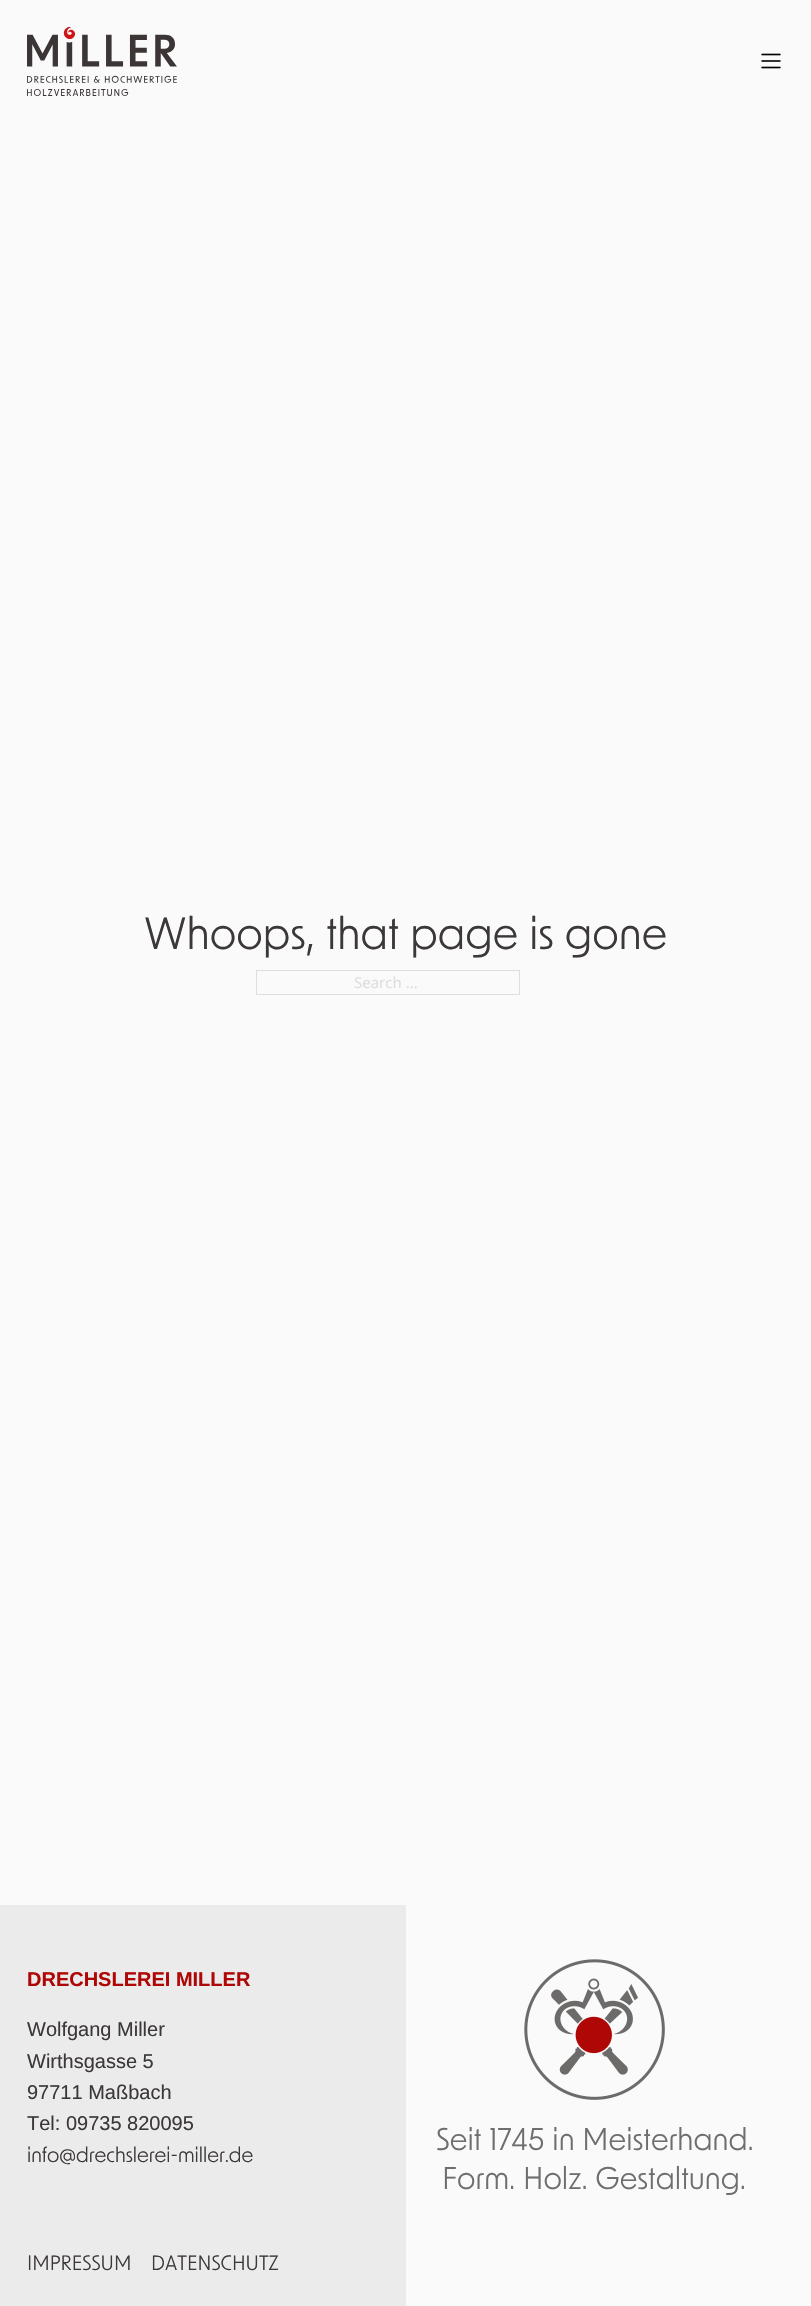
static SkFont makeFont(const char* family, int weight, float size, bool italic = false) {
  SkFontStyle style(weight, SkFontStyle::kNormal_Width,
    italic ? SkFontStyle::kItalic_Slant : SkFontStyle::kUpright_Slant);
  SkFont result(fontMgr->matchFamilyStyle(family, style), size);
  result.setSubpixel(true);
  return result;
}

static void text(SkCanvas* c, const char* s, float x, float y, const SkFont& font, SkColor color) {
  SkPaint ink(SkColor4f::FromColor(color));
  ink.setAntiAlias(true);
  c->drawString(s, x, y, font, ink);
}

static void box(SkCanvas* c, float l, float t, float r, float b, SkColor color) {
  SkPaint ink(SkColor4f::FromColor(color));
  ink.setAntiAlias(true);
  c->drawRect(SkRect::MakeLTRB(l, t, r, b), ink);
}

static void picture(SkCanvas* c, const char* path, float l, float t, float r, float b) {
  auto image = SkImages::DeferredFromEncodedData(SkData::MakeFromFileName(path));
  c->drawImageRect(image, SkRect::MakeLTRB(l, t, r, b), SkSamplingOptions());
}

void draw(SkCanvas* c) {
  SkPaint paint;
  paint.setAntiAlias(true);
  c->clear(0xfffafafa);
  picture(c, "img_01.png", 27, 27, 177, 96);
  picture(c, "img_02.png", 761, 53, 781, 69);
  SkFont face1 = makeFont("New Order", 400, 43.2f);
  text(c, "Whoops, that page is gone", 144, 949, face1, 0xff3c3839);
  paint.setStyle(SkPaint::kStroke_Style);
  paint.setStrokeWidth(1);
  paint.setColor(0xffdddedf);
  c->drawRect(SkRect::MakeLTRB(256.5f, 970.5f, 519.5f, 994.5f), paint);
  SkFont face2 = makeFont("Noto Sans", 400, 15);
  text(c, "Search ...", 354, 988, face2, 0xffdddedf);
  box(c, 0, 1905, 406, 2306, 0xffebebeb);
  SkFont face3 = makeFont("Liberation Sans", 700, 20);
  text(c, "DRECHSLEREI MILLER", 27, 1986, face3, 0xffaf0606);
  SkFont face4 = makeFont("Liberation Sans", 400, 20);
  text(c, "Wolfgang Miller", 27, 2036, face4, 0xff3c3839);
  text(c, "Wirthsgasse 5", 27, 2068, face4, 0xff3c3839);
  text(c, "97711 Maßbach", 27, 2099, face4, 0xff3c3839);
  text(c, "Tel: 09735 820095", 27, 2130, face4, 0xff3c3839);
  SkFont face5 = makeFont("New Order", 400, 20);
  text(c, "info@drechslerei-miller.de", 27, 2162, face5, 0xff3c3839);
  picture(c, "img_03.png", 524, 1959, 665, 2100);
  SkFont face6 = makeFont("New Order", 400, 30);
  text(c, "Seit 1745 in Meisterhand.", 436, 2150, face6, 0xff6e6e6e);
  text(c, "Form. Holz. Gestaltung.", 442, 2189, face6, 0xff6e6e6e);
  text(c, "IMPRESSUM", 27, 2270, face5, 0xff3c3839);
  text(c, "DATENSCHUTZ", 151, 2270, face5, 0xff3c3839);
}
